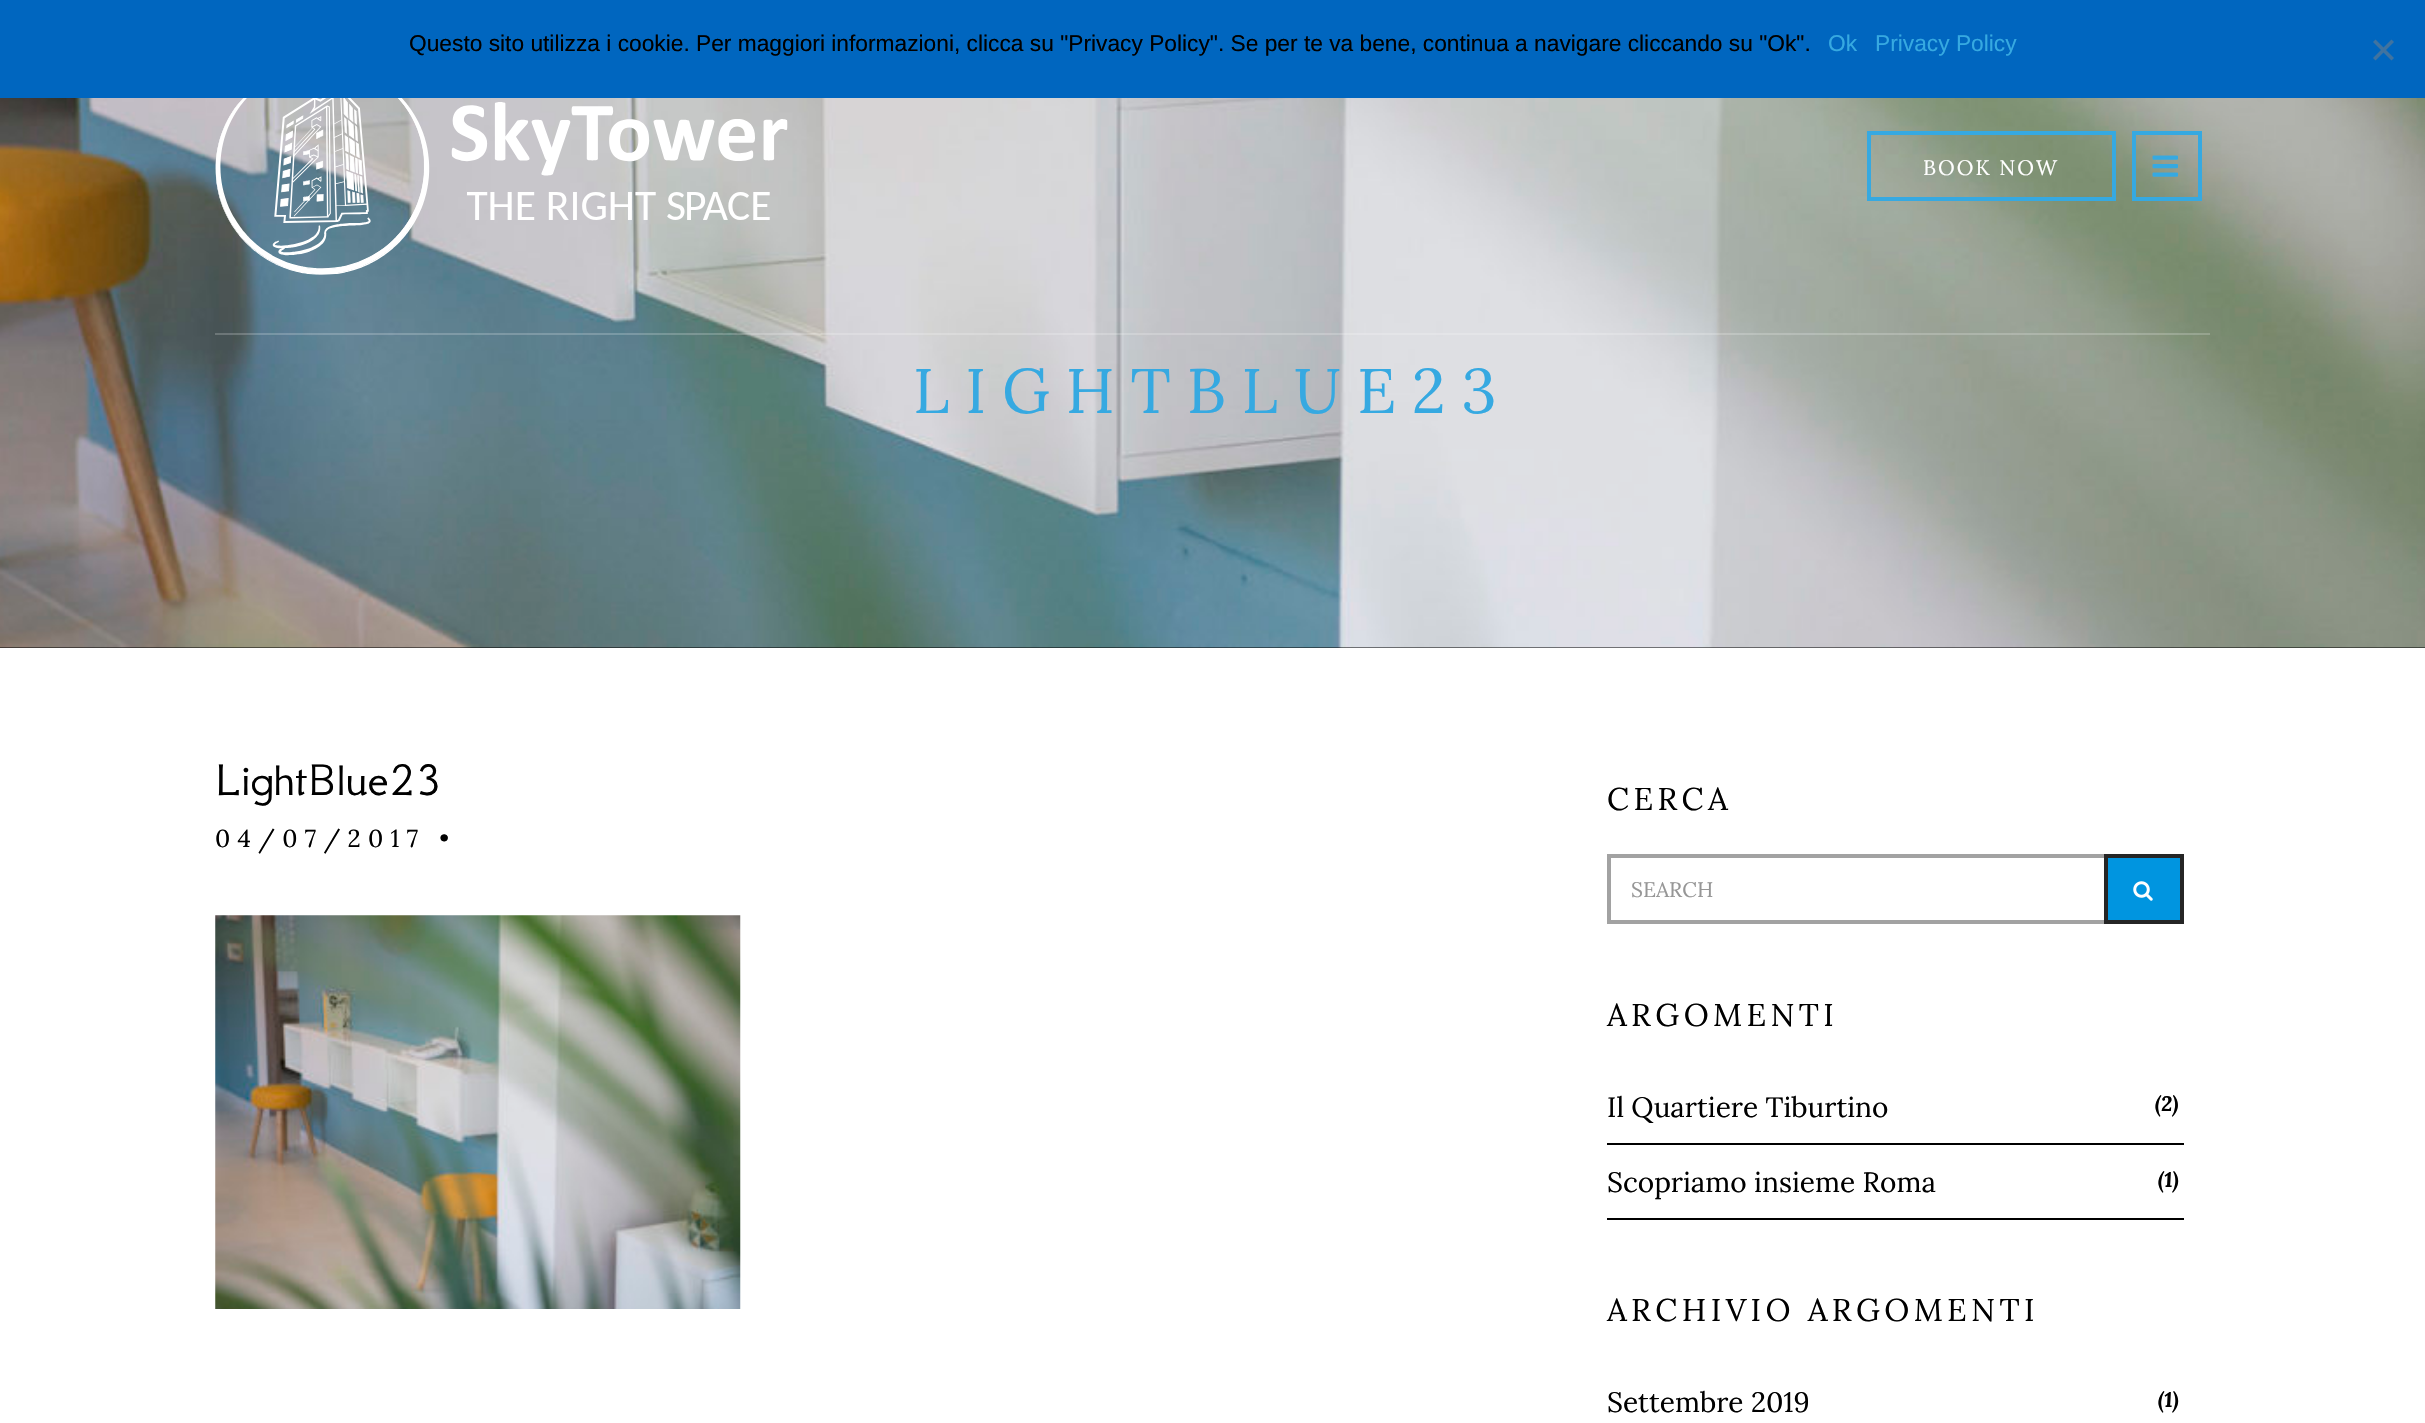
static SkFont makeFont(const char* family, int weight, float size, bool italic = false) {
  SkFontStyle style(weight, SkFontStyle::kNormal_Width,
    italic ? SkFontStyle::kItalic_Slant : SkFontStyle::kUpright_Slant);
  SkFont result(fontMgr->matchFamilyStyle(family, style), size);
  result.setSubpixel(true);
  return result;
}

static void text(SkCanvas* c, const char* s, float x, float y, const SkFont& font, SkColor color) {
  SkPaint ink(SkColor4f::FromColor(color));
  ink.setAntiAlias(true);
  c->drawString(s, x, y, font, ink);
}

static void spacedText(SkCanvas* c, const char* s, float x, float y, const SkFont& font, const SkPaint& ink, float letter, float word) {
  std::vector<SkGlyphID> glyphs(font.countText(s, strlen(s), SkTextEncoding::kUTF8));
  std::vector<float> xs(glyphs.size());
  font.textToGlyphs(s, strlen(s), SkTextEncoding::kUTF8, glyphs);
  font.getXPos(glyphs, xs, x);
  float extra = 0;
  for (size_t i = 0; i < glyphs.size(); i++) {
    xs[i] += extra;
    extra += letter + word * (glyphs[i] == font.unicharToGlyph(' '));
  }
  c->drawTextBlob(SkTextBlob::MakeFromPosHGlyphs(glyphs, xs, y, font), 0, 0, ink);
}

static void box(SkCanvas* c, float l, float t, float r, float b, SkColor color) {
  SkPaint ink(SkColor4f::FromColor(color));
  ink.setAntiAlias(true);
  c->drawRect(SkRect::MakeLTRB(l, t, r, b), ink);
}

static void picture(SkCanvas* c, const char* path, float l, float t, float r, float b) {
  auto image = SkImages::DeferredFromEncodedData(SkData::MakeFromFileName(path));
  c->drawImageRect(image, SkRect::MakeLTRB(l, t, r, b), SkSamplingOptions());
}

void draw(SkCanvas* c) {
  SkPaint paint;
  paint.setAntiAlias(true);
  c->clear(0xffffffff);
  box(c, 0, 0, 2425, 98, 0xff0066bf);
  SkFont face1 = makeFont("Liberation Sans", 400, 22.75f);
  text(c, "Questo sito utilizza i cookie. Per maggiori informazioni, clicca su \"Privacy Policy\". Se per te va bene, continua a navigare cliccando su \"Ok\".", 409, 51, face1, 0xff000000);
  text(c, "Ok", 1828, 51, face1, 0xff36a9e1);
  text(c, "Privacy Policy", 1875, 51, face1, 0xff36a9e1);
  paint.setColor(0xff4073a0);
  c->drawPath(SkPathBuilder().moveTo(2391.5f, 39.5f).lineTo(2394, 42).lineTo(2375.5f, 60.5f).lineTo(2373, 58).close().detach(), paint);
  c->drawPath(SkPathBuilder().moveTo(2373, 42).lineTo(2375.5f, 39.5f).lineTo(2394, 58).lineTo(2391.5f, 60.5f).close().detach(), paint);
  box(c, 0, 647, 2425, 648, 0xff000000);
  picture(c, "img_03.png", 0, 98, 2425, 648);
  box(c, 215, 333, 2210, 335, 0x33ffffff);
  picture(c, "img_01.png", 215, 98, 788, 275);
  paint.setStyle(SkPaint::kStroke_Style);
  paint.setStrokeWidth(4);
  paint.setColor(0xff36a9e1);
  c->drawRect(SkRect::MakeLTRB(1869, 133, 2114, 199), paint);
  SkFont face2 = makeFont("Lora", 400, 21);
  paint.setStyle(SkPaint::kFill_Style);
  paint.setColor(0xffffffff);
  spacedText(c, "BOOK NOW", 1923, 175, face2, paint, 2, 0);
  paint.setStyle(SkPaint::kStroke_Style);
  paint.setColor(0xff36a9e1);
  c->drawRect(SkRect::MakeLTRB(2134, 133, 2200, 199), paint);
  picture(c, "img_02.png", 2152, 155, 2178, 177);
  SkFont face3 = makeFont("Lora", 400, 63);
  paint.setStyle(SkPaint::kFill_Style);
  spacedText(c, "LIGHTBLUE23", 913, 413, face3, paint, 15.75f, 0);
  SkFont face4 = makeFont("GFS Neohellenic", 400, 49);
  text(c, "LightBlue23", 215, 795, face4, 0xff000000);
  SkFont face5 = makeFont("Lora", 400, 24.5f);
  paint.setColor(0xff000000);
  spacedText(c, "04/07/2017 •", 215, 847, face5, paint, 7.3f, 0);
  picture(c, "img_04.png", 215, 915, 741, 1309);
  SkFont face6 = makeFont("Lora", 400, 31.5f);
  spacedText(c, "CERCA", 1607, 810, face6, paint, 4.4f, 0);
  paint.setStyle(SkPaint::kStroke_Style);
  paint.setColor(0xffa2a2a2);
  c->drawRect(SkRect::MakeLTRB(1609, 856, 2182, 922), paint);
  text(c, "SEARCH", 1631, 897, face2, 0xff969696);
  paint.setStyle(SkPaint::kFill_Style);
  paint.setColor(0xff0095e0);
  c->drawRect(SkRect::MakeLTRB(2106, 856, 2182, 922), paint);
  paint.setStyle(SkPaint::kStroke_Style);
  paint.setColor(0xff252525);
  c->drawRect(SkRect::MakeLTRB(2106, 856, 2182, 922), paint);
  picture(c, "img_05.png", 2133, 881, 2153, 901);
  paint.setStyle(SkPaint::kFill_Style);
  paint.setColor(0xff000000);
  spacedText(c, "ARGOMENTI", 1607, 1026, face6, paint, 4.4f, 0);
  box(c, 1607, 1143, 2184, 1145, 0xff000000);
  SkFont face7 = makeFont("Lora", 400, 28);
  text(c, "Il Quartiere Tiburtino", 1607, 1117, face7, 0xff000000);
  SkFont face8 = makeFont("Lora", 700, 21, true);
  text(c, "(2)", 2155, 1111, face8, 0xff000000);
  box(c, 1607, 1218, 2184, 1220, 0xff000000);
  text(c, "Scopriamo insieme Roma", 1607, 1192, face7, 0xff000000);
  text(c, "(1)", 2158, 1187, face8, 0xff000000);
  spacedText(c, "ARCHIVIO ARGOMENTI", 1607, 1321, face6, paint, 4.4f, 0);
  text(c, "Settembre 2019", 1607, 1412, face7, 0xff000000);
  text(c, "(1)", 2158, 1407, face8, 0xff000000);
}
